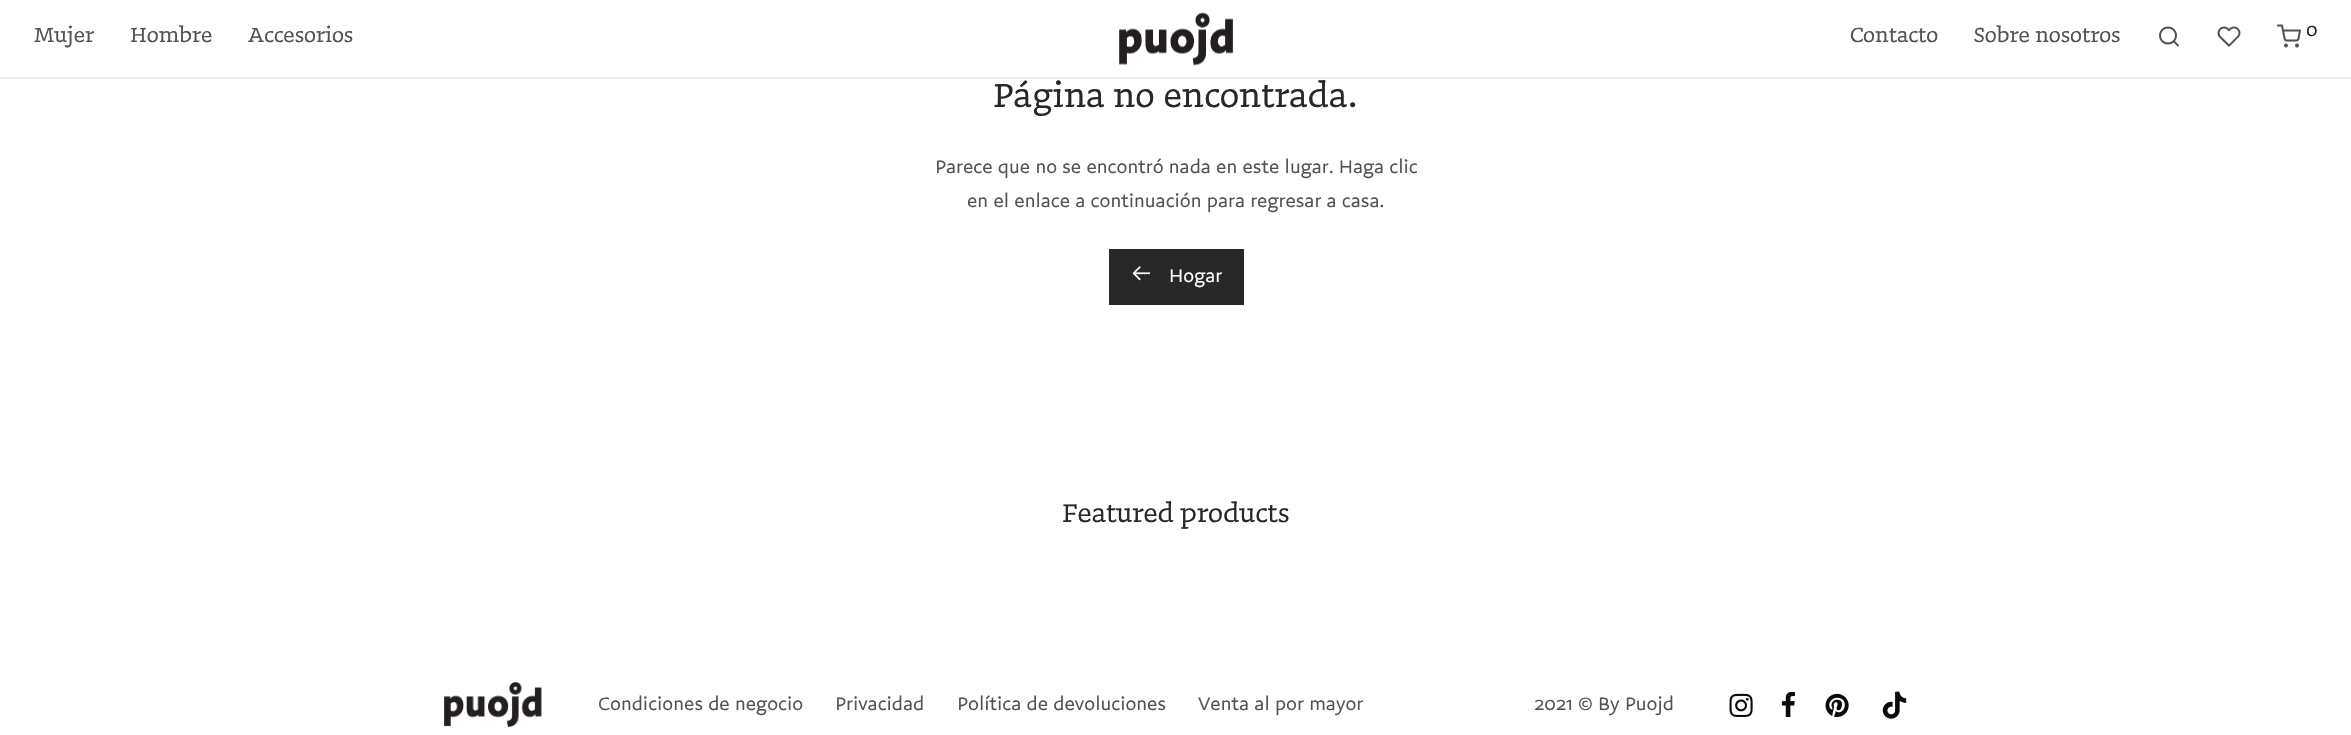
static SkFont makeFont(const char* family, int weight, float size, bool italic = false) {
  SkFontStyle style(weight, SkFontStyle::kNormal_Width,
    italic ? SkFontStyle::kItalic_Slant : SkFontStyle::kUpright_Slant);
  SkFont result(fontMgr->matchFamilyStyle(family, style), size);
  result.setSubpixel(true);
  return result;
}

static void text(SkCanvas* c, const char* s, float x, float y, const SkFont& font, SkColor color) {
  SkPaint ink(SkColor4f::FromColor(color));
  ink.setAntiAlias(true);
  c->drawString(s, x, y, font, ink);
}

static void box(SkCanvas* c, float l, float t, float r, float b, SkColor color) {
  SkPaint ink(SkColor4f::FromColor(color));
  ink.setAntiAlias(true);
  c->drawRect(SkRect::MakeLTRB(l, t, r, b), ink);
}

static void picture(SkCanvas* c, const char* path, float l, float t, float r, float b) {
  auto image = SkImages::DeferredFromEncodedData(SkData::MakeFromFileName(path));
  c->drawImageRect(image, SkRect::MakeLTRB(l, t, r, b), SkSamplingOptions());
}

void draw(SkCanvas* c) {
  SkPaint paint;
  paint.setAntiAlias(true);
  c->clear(0xffffffff);
  box(c, 0, 77, 2351, 79, 0xffeeeeee);
  SkFont face1 = makeFont("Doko", 400, 24);
  text(c, "Mujer", 34, 42, face1, 0xff525252);
  text(c, "Hombre", 130, 42, face1, 0xff525252);
  text(c, "Accesorios", 248, 42, face1, 0xff525252);
  picture(c, "img_01.png", 1119, 12, 1234, 66);
  text(c, "Contacto", 1850, 42, face1, 0xff525252);
  text(c, "Sobre nosotros", 1974, 42, face1, 0xff525252);
  picture(c, "img_02.png", 2159, 26, 2179, 47);
  picture(c, "img_03.png", 2217, 26, 2241, 47);
  picture(c, "img_04.png", 2277, 24, 2301, 48);
  SkFont face2 = makeFont("Doko", 400, 21);
  text(c, "0", 2306, 36, face2, 0xff1a1a1a);
  SkFont face3 = makeFont("Doko", 400, 39);
  text(c, "Página no encontrada.", 993, 107, face3, 0xff282828);
  SkFont face4 = makeFont("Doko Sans", 400, 21);
  text(c, "Parece que no se encontró nada en este lugar. Haga clic", 935, 173, face4, 0xff525252);
  text(c, "en el enlace a continuación para regresar a casa.", 967, 207, face4, 0xff525252);
  box(c, 1109, 249, 1244, 305, 0xff282828);
  picture(c, "img_05.png", 1132, 266, 1151, 281);
  text(c, "Hogar", 1169, 282, face4, 0xffffffff);
  SkFont face5 = makeFont("Doko", 400, 30);
  text(c, "Featured products", 1062, 522, face5, 0xff282828);
  picture(c, "img_06.png", 444, 682, 542, 727);
  text(c, "Condiciones de negocio", 598, 710, face4, 0xff525252);
  text(c, "Privacidad", 835, 710, face4, 0xff525252);
  text(c, "Política de devoluciones", 957, 710, face4, 0xff525252);
  text(c, "Venta al por mayor", 1198, 710, face4, 0xff525252);
  text(c, "2021 © By Puojd", 1534, 710, face4, 0xff525252);
  picture(c, "img_07.png", 1729, 693, 1753, 717);
  picture(c, "img_08.png", 1781, 691, 1795, 717);
  picture(c, "img_09.png", 1825, 693, 1849, 717);
  picture(c, "img_10.png", 1882, 691, 1907, 719);
}
